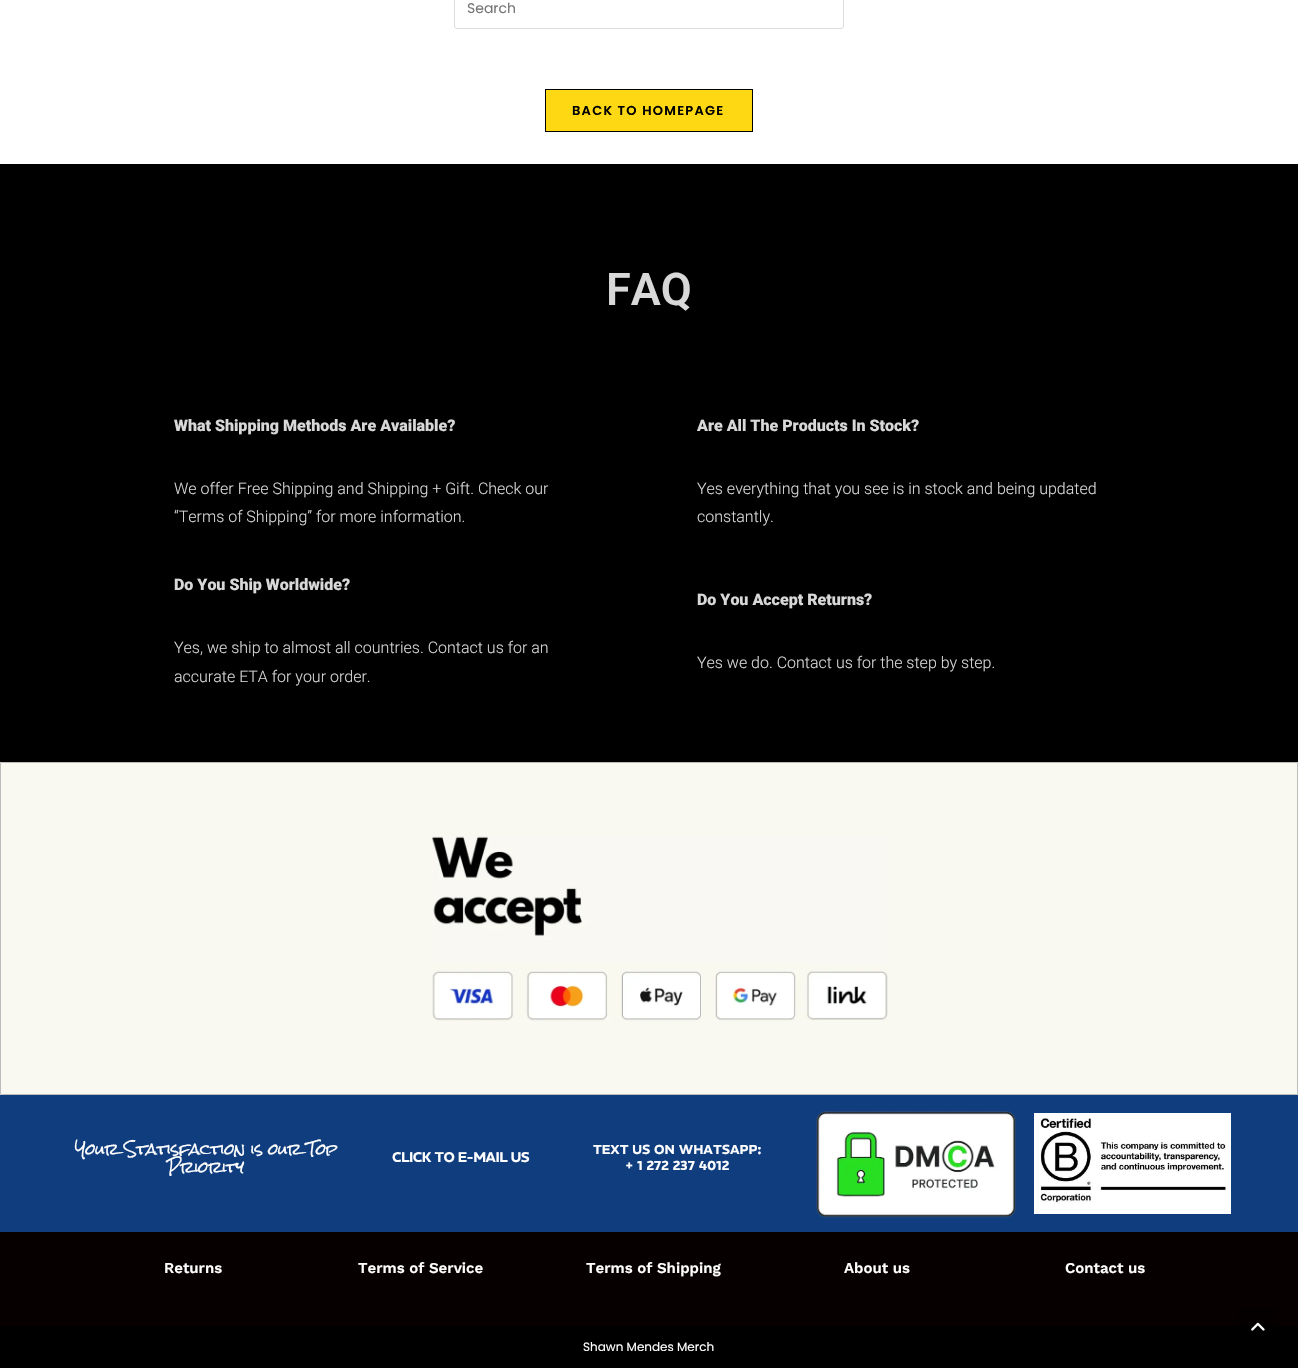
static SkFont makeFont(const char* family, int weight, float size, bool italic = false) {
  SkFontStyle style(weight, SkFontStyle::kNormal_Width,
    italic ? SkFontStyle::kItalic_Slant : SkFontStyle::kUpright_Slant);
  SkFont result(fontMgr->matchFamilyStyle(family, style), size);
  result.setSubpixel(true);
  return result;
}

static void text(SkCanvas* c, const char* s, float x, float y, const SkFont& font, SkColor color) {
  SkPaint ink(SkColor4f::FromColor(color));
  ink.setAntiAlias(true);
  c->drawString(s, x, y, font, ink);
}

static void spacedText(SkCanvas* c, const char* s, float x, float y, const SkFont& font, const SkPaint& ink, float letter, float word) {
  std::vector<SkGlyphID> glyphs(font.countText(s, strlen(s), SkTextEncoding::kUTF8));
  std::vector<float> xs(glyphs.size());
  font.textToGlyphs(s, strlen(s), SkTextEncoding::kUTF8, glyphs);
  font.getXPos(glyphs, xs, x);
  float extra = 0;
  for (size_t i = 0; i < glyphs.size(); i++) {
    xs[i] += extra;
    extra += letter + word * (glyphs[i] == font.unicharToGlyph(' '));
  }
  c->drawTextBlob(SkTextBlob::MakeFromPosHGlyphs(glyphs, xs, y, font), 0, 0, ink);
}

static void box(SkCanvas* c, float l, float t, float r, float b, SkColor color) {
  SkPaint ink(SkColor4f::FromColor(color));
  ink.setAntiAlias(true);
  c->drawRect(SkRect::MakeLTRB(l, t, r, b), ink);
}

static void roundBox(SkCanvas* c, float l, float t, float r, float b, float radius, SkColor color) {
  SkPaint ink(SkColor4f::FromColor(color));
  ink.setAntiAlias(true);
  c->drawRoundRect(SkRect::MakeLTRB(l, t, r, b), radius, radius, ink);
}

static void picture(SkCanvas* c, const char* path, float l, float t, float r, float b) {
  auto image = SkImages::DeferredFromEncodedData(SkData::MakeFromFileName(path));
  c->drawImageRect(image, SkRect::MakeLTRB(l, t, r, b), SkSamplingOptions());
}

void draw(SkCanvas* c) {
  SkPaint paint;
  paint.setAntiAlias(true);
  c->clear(0xffffffff);
  paint.setStyle(SkPaint::kStroke_Style);
  paint.setStrokeWidth(1);
  paint.setColor(0xffdddddd);
  c->drawRoundRect(SkRect::MakeLTRB(454.5f, -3.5f, 843.5f, 28.5f), 2.5f, 2.5f, paint);
  SkFont face1 = makeFont("Poppins", 400, 14);
  text(c, "Search", 467, 13, face1, 0xff757575);
  paint.setStyle(SkPaint::kFill_Style);
  paint.setColor(0xffffd814);
  c->drawRect(SkRect::MakeLTRB(545.5f, 89.5f, 752.5f, 131.5f), paint);
  paint.setStyle(SkPaint::kStroke_Style);
  paint.setColor(0xff000000);
  c->drawRect(SkRect::MakeLTRB(545.5f, 89.5f, 752.5f, 131.5f), paint);
  SkFont face2 = makeFont("Poppins", 600, 13);
  paint.setStyle(SkPaint::kFill_Style);
  spacedText(c, "BACK TO HOMEPAGE", 572, 115, face2, paint, 1.25f, 0);
  box(c, 0, 164, 1298, 762, 0xff000000);
  SkFont face3 = makeFont("Roboto", 600, 45);
  text(c, "FAQ", 606, 305, face3, 0xffd9d8d8);
  SkFont face4 = makeFont("Roboto", 900, 16);
  text(c, "What Shipping Methods Are Available?", 174, 431, face4, 0xffd9d8d8);
  SkFont face5 = makeFont("Roboto", 300, 16);
  text(c, "We offer Free Shipping and Shipping + Gift. Check our", 174, 494, face5, 0xffd9d8d8);
  text(c, "“Terms of Shipping” for more information.", 174, 522, face5, 0xffd9d8d8);
  text(c, "Are All The Products In Stock?", 697, 431, face4, 0xffd9d8d8);
  text(c, "Yes everything that you see is in stock and being updated", 697, 494, face5, 0xffd9d8d8);
  text(c, "constantly.", 697, 522, face5, 0xffd9d8d8);
  text(c, "Do You Ship Worldwide?", 174, 590, face4, 0xffd9d8d8);
  text(c, "Yes, we ship to almost all countries. Contact us for an", 174, 653, face5, 0xffd9d8d8);
  text(c, "accurate ETA for your order.", 174, 682, face5, 0xffd9d8d8);
  text(c, "Do You Accept Returns?", 697, 605, face4, 0xffd9d8d8);
  text(c, "Yes we do. Contact us for the step by step.", 697, 668, face5, 0xffd9d8d8);
  paint.setColor(0xfff9f9f2);
  c->drawRoundRect(SkRect::MakeLTRB(0.5f, 762.5f, 1297.5f, 1094.5f), 0.5f, 0.5f, paint);
  paint.setStyle(SkPaint::kStroke_Style);
  paint.setColor(0xffbcbcbc);
  c->drawRoundRect(SkRect::MakeLTRB(0.5f, 762.5f, 1297.5f, 1094.5f), 0.5f, 0.5f, paint);
  picture(c, "img_01.png", 432, 836, 888, 1021);
  box(c, 0, 1095, 1298, 1232, 0xff103d7e);
  SkFont face6 = makeFont("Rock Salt", 400, 15);
  paint.setStyle(SkPaint::kFill_Style);
  paint.setColor(0xffffffff);
  spacedText(c, "Your Statisfaction is our Top", 75, 1155, face6, paint, -0.5f, 0);
  spacedText(c, "Priority", 167, 1173, face6, paint, -0.5f, 0);
  SkFont face7 = makeFont("REM", 600, 14);
  spacedText(c, "CLICK TO E-MAIL US", 392, 1162, face7, paint, -0.5f, 0);
  SkFont face8 = makeFont("REM", 600, 13);
  text(c, "TEXT US ON WHATSAPP:", 593, 1154, face8, 0xffffffff);
  text(c, "+ 1 272 237 4012", 625, 1170, face8, 0xffffffff);
  picture(c, "img_02.png", 816, 1111, 1016, 1218);
  picture(c, "img_03.png", 1034, 1113, 1231, 1214);
  box(c, 0, 1232, 1298, 1326, 0xff070000);
  SkFont face9 = makeFont("Work Sans", 600, 15);
  text(c, "Returns", 164, 1273, face9, 0xffffffff);
  text(c, "Terms of Service", 358, 1273, face9, 0xffffffff);
  text(c, "Terms of Shipping", 586, 1273, face9, 0xffffffff);
  text(c, "About us", 844, 1273, face9, 0xffffffff);
  text(c, "Contact us", 1065, 1273, face9, 0xffffffff);
  box(c, 0, 1326, 1298, 1368, 0xff000000);
  SkFont face10 = makeFont("Poppins", 400, 12);
  text(c, "Shawn Mendes Merch", 583, 1351, face10, 0xffffffff);
  roundBox(c, 1238, 1308, 1278, 1348, 2, 0x66000000);
  picture(c, "img_04.png", 1251, 1322, 1265, 1331);
}
